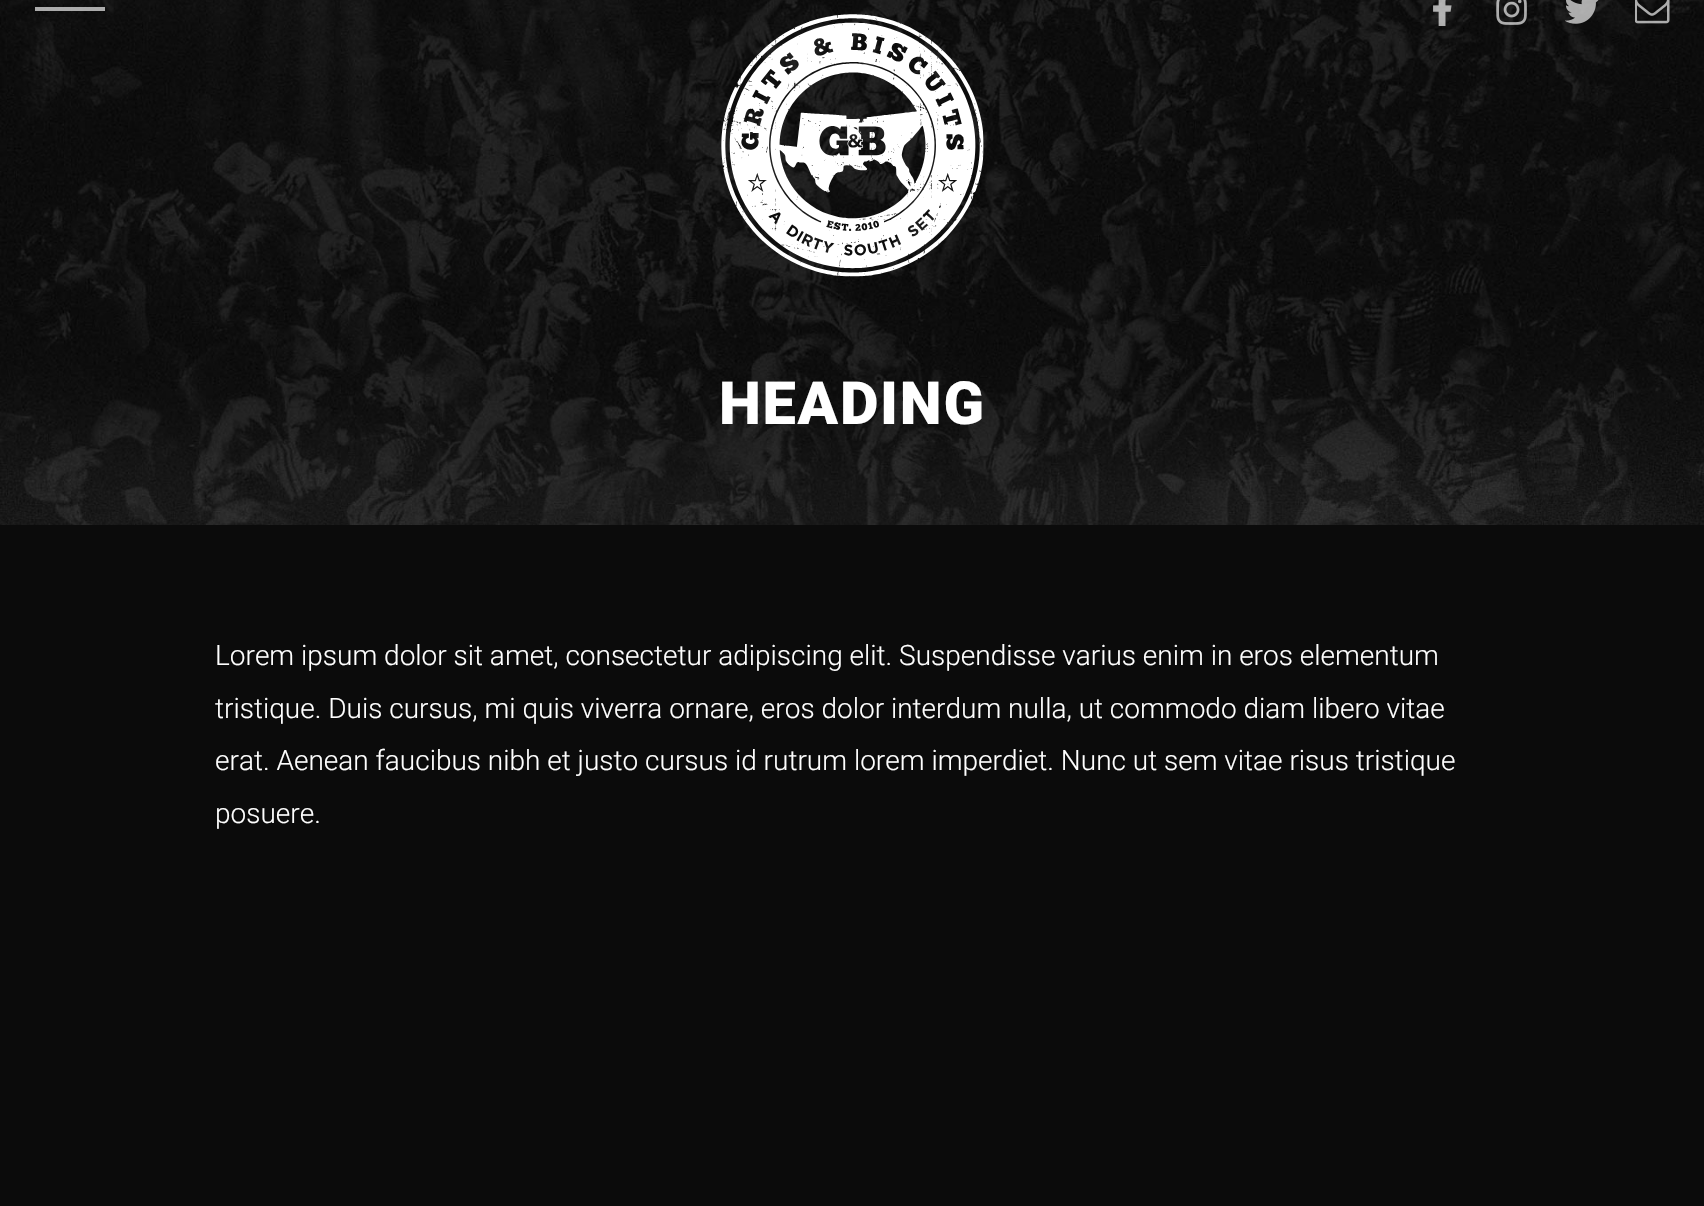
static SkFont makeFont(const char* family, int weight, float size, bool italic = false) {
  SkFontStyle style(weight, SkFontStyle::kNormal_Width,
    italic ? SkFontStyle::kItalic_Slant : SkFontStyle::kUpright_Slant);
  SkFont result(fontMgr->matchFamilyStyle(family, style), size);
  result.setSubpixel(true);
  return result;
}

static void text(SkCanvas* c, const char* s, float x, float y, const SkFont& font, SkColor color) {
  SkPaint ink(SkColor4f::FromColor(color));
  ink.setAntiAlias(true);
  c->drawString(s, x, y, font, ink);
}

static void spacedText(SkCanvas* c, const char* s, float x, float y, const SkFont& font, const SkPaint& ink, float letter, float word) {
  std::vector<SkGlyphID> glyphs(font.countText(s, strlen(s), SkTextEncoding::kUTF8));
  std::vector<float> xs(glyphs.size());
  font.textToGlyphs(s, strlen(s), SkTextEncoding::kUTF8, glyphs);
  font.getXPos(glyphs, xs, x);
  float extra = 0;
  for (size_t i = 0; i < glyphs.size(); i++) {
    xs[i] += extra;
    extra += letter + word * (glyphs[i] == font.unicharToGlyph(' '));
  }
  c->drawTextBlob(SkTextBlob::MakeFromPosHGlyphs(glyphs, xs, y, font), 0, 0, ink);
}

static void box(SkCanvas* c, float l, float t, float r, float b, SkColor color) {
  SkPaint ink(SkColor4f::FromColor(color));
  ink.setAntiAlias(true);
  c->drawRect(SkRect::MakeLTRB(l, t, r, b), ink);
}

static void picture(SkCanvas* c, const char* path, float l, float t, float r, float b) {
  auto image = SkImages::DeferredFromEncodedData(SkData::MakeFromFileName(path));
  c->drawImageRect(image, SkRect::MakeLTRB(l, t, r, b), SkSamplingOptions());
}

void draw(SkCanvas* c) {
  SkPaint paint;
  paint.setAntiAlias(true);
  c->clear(0xff0b0b0b);
  picture(c, "img_05.png", 0, 0, 1704, 525);
  box(c, 35, 7, 105, 11, 0xa6ffffff);
  picture(c, "img_01.png", 1433, 0, 1452, 26);
  picture(c, "img_02.png", 1496, 0, 1527, 25);
  picture(c, "img_03.png", 1565, 0, 1599, 24);
  picture(c, "img_04.png", 1635, 0, 1670, 24);
  picture(c, "img_06.png", 721, 14, 984, 277);
  SkFont face1 = makeFont("Roboto", 900, 59.5f);
  paint.setColor(0xffffffff);
  spacedText(c, "HEADING", 719, 424, face1, paint, 1.75f, 0);
  SkFont face2 = makeFont("Roboto", 300, 28);
  text(c, "Lorem ipsum dolor sit amet, consectetur adipiscing elit. Suspendisse varius enim in eros elementum", 215, 665, face2, 0xffffffff);
  text(c, "tristique. Duis cursus, mi quis viverra ornare, eros dolor interdum nulla, ut commodo diam libero vitae", 215, 718, face2, 0xffffffff);
  text(c, "erat. Aenean faucibus nibh et justo cursus id rutrum lorem imperdiet. Nunc ut sem vitae risus tristique", 215, 770, face2, 0xffffffff);
  text(c, "posuere.", 215, 823, face2, 0xffffffff);
}
